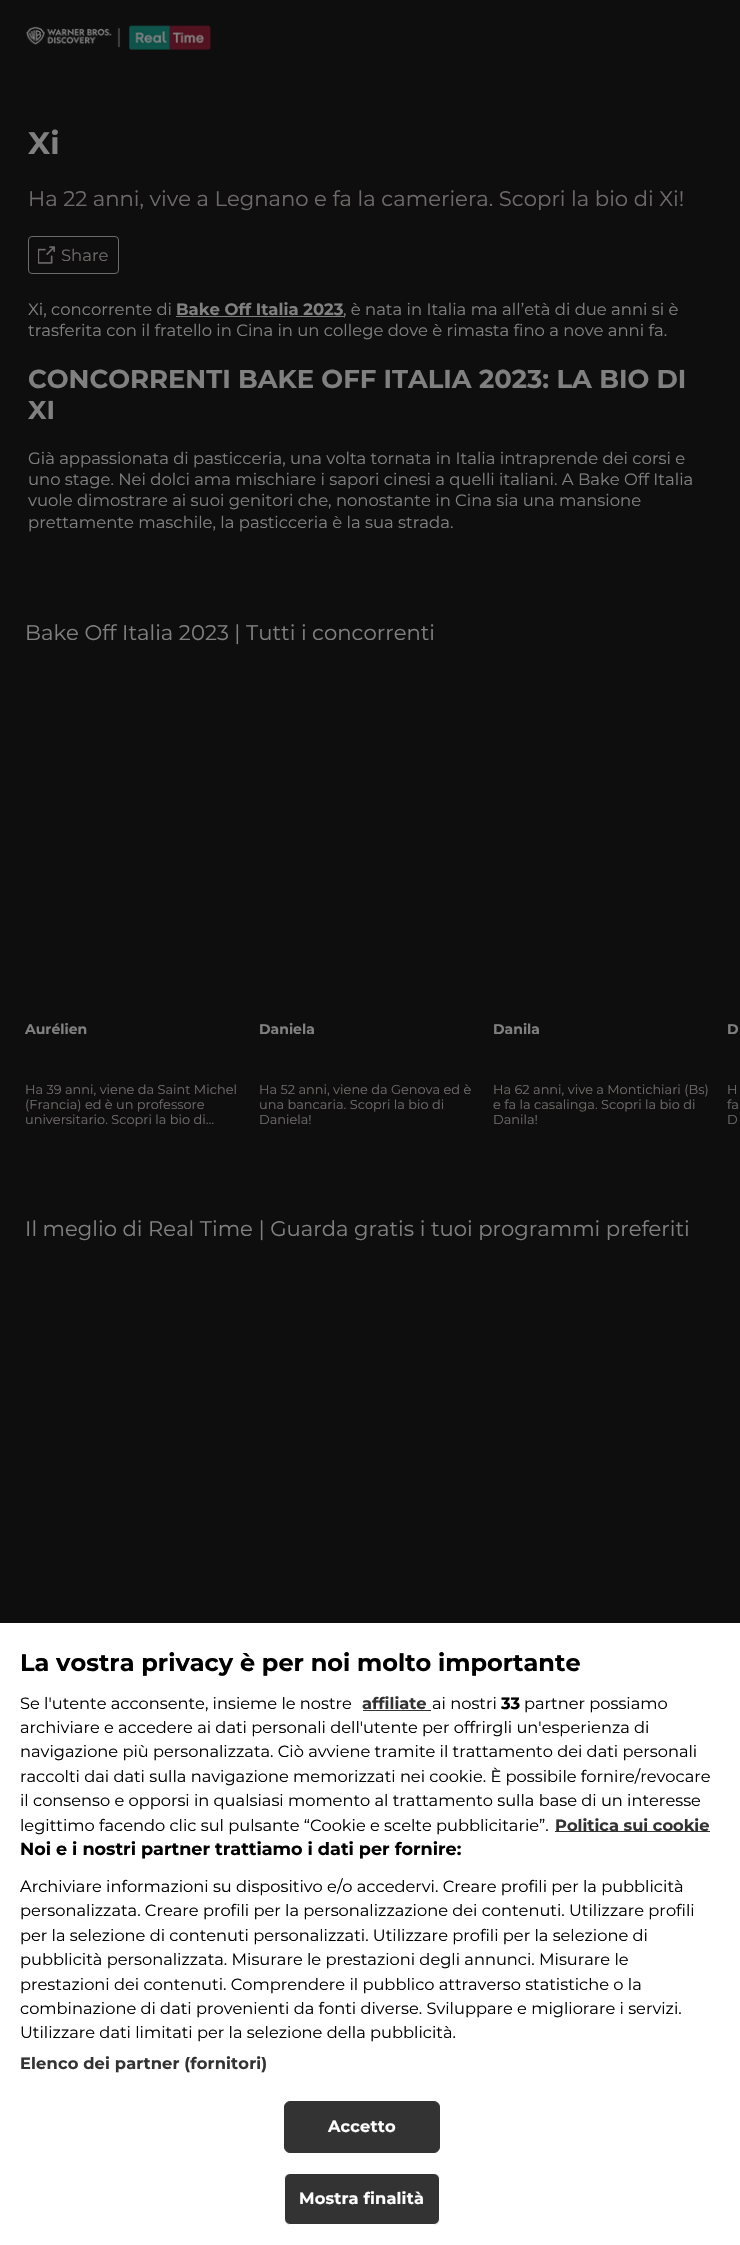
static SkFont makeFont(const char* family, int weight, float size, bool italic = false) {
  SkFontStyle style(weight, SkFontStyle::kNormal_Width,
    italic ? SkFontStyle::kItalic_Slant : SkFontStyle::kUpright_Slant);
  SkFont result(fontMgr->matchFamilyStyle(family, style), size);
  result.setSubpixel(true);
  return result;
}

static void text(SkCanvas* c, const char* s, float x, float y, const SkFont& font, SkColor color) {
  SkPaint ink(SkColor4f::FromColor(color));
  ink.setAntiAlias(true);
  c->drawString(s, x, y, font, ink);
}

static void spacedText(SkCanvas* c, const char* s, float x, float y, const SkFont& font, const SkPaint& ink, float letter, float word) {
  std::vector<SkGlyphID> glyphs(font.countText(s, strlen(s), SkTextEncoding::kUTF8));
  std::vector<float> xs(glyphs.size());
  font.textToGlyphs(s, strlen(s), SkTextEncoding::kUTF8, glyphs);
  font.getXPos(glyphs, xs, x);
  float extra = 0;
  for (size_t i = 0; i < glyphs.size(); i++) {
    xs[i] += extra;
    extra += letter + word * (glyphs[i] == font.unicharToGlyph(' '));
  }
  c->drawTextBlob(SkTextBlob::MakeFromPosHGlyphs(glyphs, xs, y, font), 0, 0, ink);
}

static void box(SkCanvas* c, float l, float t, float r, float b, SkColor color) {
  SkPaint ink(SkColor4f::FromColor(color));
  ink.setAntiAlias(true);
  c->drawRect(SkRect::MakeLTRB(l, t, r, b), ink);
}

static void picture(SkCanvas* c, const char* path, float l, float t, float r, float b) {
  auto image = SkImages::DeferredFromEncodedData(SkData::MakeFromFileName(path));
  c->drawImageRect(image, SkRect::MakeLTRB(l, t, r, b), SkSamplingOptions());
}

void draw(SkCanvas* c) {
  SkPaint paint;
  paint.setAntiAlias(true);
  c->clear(0xff0f0e0e);
  picture(c, "img_01.png", 26, 25, 211, 50);
  SkFont face1 = makeFont("Montserrat", 700, 31);
  text(c, "Xi", 28, 154, face1, 0xff808080);
  SkFont face2 = makeFont("Montserrat", 400, 21.15f);
  text(c, "Ha 22 anni, vive a Legnano e fa la cameriera. Scopri la bio di Xi!", 28, 206, face2, 0xff6f6a6a);
  paint.setStyle(SkPaint::kStroke_Style);
  paint.setStrokeWidth(1);
  paint.setColor(0xff6f6a6a);
  c->drawRoundRect(SkRect::MakeLTRB(28.5f, 236.5f, 118.5f, 273.5f), 3.5f, 3.5f, paint);
  picture(c, "img_02.png", 38, 246, 55, 264);
  SkFont face3 = makeFont("Montserrat", 400, 16.45f);
  text(c, "Share", 61, 261, face3, 0xff6f6a6a);
  text(c, "Xi, concorrente di", 28, 315, face3, 0xff808080);
  SkFont face4 = makeFont("Montserrat", 700, 16.45f);
  text(c, "Bake Off Italia 2023", 176, 315, face4, 0xff808080);
  box(c, 176, 316, 344, 317, 0xff808080);
  text(c, ", è nata in Italia ma all’età di due anni si è", 343, 315, face3, 0xff808080);
  text(c, "trasferita con il fratello in Cina in un college dove è rimasta fino a nove anni fa.", 28, 336, face3, 0xff808080);
  SkFont face5 = makeFont("Montserrat", 700, 25.85f);
  text(c, "CONCORRENTI BAKE OFF ITALIA 2023: LA BIO DI", 28, 388, face5, 0xff808080);
  text(c, "XI", 28, 419, face5, 0xff808080);
  text(c, "Già appassionata di pasticceria, una volta tornata in Italia intraprende dei corsi e", 28, 464, face3, 0xff808080);
  text(c, "uno stage. Nei dolci ama mischiare i sapori cinesi a quelli italiani. A Bake Off Italia", 28, 485, face3, 0xff808080);
  text(c, "vuole dimostrare ai suoi genitori che, nonostante in Cina sia una mansione", 28, 506, face3, 0xff808080);
  text(c, "prettamente maschile, la pasticceria è la sua strada.", 28, 528, face3, 0xff808080);
  text(c, "Bake Off Italia 2023 | Tutti i concorrenti", 25, 640, face2, 0xff808080);
  SkFont face6 = makeFont("Montserrat", 700, 14);
  text(c, "Aurélien", 25, 1034, face6, 0xff808080);
  SkFont face7 = makeFont("Montserrat", 400, 12.9f);
  text(c, "Ha 39 anni, viene da Saint Michel", 25, 1094, face7, 0xff6f6a6a);
  text(c, "(Francia) ed è un professore", 25, 1109, face7, 0xff6f6a6a);
  text(c, "universitario. Scopri la bio di…", 25, 1124, face7, 0xff6f6a6a);
  text(c, "Daniela", 259, 1034, face6, 0xff808080);
  text(c, "Ha 52 anni, viene da Genova ed è", 259, 1094, face7, 0xff6f6a6a);
  text(c, "una bancaria. Scopri la bio di", 259, 1109, face7, 0xff6f6a6a);
  text(c, "Daniela!", 259, 1124, face7, 0xff6f6a6a);
  text(c, "Danila", 493, 1034, face6, 0xff808080);
  text(c, "Ha 62 anni, vive a Montichiari (Bs)", 493, 1094, face7, 0xff6f6a6a);
  text(c, "e fa la casalinga. Scopri la bio di", 493, 1109, face7, 0xff6f6a6a);
  text(c, "Danila!", 493, 1124, face7, 0xff6f6a6a);
  text(c, "D", 727, 1034, face6, 0xff808080);
  text(c, "H", 727, 1094, face7, 0xff6f6a6a);
  text(c, "fa", 727, 1109, face7, 0xff6f6a6a);
  text(c, "D", 727, 1124, face7, 0xff6f6a6a);
  text(c, "Il meglio di Real Time | Guarda gratis i tuoi programmi preferiti", 25, 1236, face2, 0xff808080);
  box(c, 0, 1623, 740, 2245, 0xffffffff);
  SkFont face8 = makeFont("Montserrat", 700, 24);
  text(c, "La vostra privacy è per noi molto importante", 20, 1671, face8, 0xff000000);
  SkFont face9 = makeFont("Montserrat", 400, 16.25f);
  text(c, "Se l'utente acconsente, insieme le nostre", 20, 1709, face9, 0xff000000);
  SkFont face10 = makeFont("Montserrat", 700, 16.25f);
  text(c, "affiliate", 362, 1709, face10, 0xff333333);
  box(c, 363, 1710, 431, 1711, 0xff333333);
  text(c, "ai nostri", 432, 1709, face9, 0xff000000);
  text(c, "33", 501, 1709, face10, 0xff000000);
  text(c, "partner possiamo", 524, 1709, face9, 0xff000000);
  text(c, "archiviare e accedere ai dati personali dell'utente per offrirgli un'esperienza di", 20, 1733, face9, 0xff000000);
  text(c, "navigazione più personalizzata. Ciò avviene tramite il trattamento dei dati personali", 20, 1757, face9, 0xff000000);
  text(c, "raccolti dai dati sulla navigazione memorizzati nei cookie. È possibile fornire/revocare", 20, 1782, face9, 0xff000000);
  text(c, "il consenso e opporsi in qualsiasi momento al trattamento sulla base di un interesse", 20, 1806, face9, 0xff000000);
  text(c, "legittimo facendo clic sul pulsante “Cookie e scelte pubblicitarie”.", 20, 1831, face9, 0xff000000);
  box(c, 555, 1831, 710, 1832, 0xff333333);
  text(c, "Politica sui cookie", 555, 1831, face10, 0xff333333);
  SkFont face11 = makeFont("Montserrat", 700, 17.6f);
  text(c, "Noi e i nostri partner trattiamo i dati per fornire:", 20, 1855, face11, 0xff000000);
  text(c, "Archiviare informazioni su dispositivo e/o accedervi. Creare profili per la pubblicità", 20, 1892, face9, 0xff000000);
  text(c, "personalizzata. Creare profili per la personalizzazione dei contenuti. Utilizzare profili", 20, 1916, face9, 0xff000000);
  text(c, "per la selezione di contenuti personalizzati. Utilizzare profili per la selezione di", 20, 1941, face9, 0xff000000);
  text(c, "pubblicità personalizzata. Misurare le prestazioni degli annunci. Misurare le", 20, 1965, face9, 0xff000000);
  text(c, "prestazioni dei contenuti. Comprendere il pubblico attraverso statistiche o la", 20, 1990, face9, 0xff000000);
  text(c, "combinazione di dati provenienti da fonti diverse. Sviluppare e migliorare i servizi.", 20, 2014, face9, 0xff000000);
  text(c, "Utilizzare dati limitati per la selezione della pubblicità.", 20, 2038, face9, 0xff000000);
  paint.setStyle(SkPaint::kFill_Style);
  paint.setColor(0xff333333);
  spacedText(c, "Elenco dei partner (fornitori)", 20, 2069, face10, paint, 0.15f, 0);
  c->drawRoundRect(SkRect::MakeLTRB(284.5f, 2101.5f, 439.5f, 2152.5f), 5.5f, 5.5f, paint);
  paint.setStyle(SkPaint::kStroke_Style);
  c->drawRoundRect(SkRect::MakeLTRB(284.5f, 2101.5f, 439.5f, 2152.5f), 5.5f, 5.5f, paint);
  paint.setStyle(SkPaint::kFill_Style);
  paint.setColor(0xffffffff);
  spacedText(c, "Accetto", 328, 2132, face10, paint, 0.15f, 0);
  paint.setColor(0xff333333);
  c->drawRoundRect(SkRect::MakeLTRB(284.5f, 2173.5f, 439.5f, 2224.5f), 5.5f, 5.5f, paint);
  paint.setStyle(SkPaint::kStroke_Style);
  paint.setColor(0xffffffff);
  c->drawRoundRect(SkRect::MakeLTRB(284.5f, 2173.5f, 439.5f, 2224.5f), 5.5f, 5.5f, paint);
  paint.setStyle(SkPaint::kFill_Style);
  spacedText(c, "Mostra finalità", 299, 2204, face10, paint, 0.15f, 0);
}
